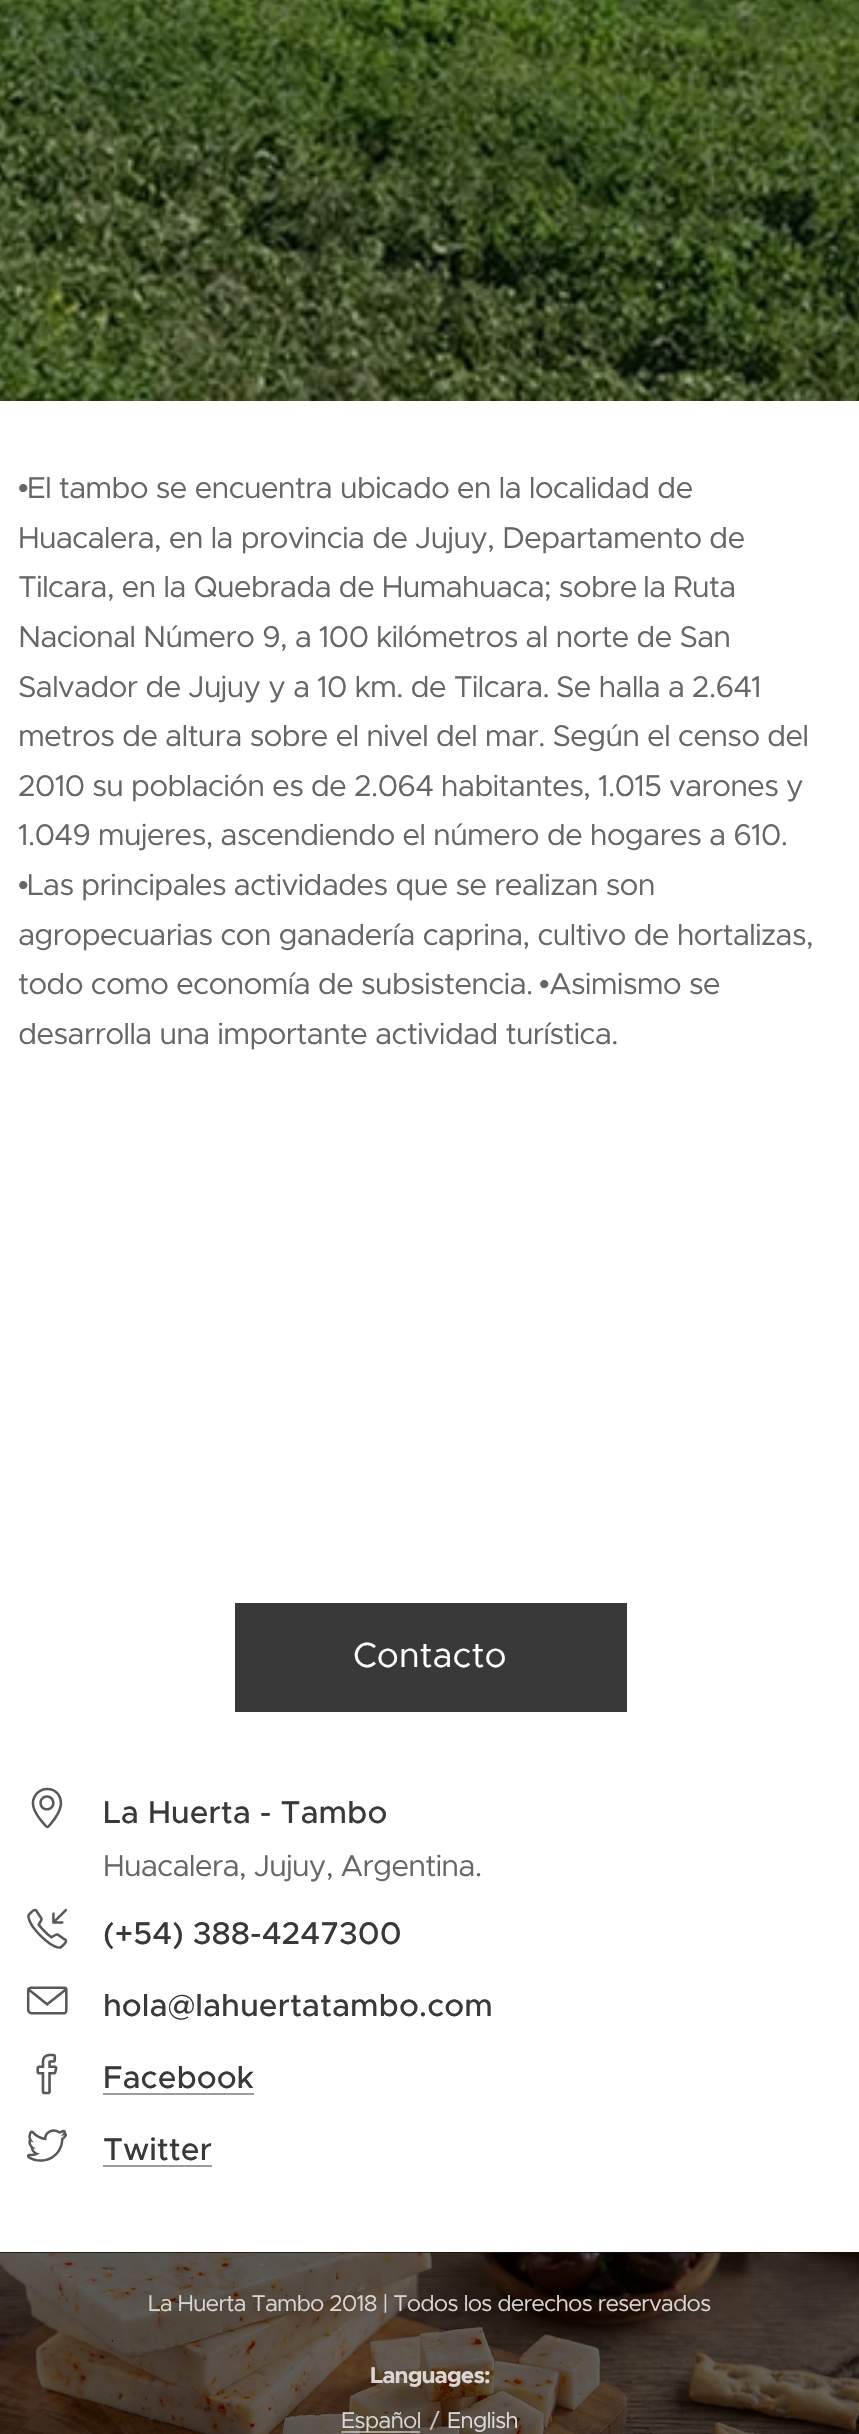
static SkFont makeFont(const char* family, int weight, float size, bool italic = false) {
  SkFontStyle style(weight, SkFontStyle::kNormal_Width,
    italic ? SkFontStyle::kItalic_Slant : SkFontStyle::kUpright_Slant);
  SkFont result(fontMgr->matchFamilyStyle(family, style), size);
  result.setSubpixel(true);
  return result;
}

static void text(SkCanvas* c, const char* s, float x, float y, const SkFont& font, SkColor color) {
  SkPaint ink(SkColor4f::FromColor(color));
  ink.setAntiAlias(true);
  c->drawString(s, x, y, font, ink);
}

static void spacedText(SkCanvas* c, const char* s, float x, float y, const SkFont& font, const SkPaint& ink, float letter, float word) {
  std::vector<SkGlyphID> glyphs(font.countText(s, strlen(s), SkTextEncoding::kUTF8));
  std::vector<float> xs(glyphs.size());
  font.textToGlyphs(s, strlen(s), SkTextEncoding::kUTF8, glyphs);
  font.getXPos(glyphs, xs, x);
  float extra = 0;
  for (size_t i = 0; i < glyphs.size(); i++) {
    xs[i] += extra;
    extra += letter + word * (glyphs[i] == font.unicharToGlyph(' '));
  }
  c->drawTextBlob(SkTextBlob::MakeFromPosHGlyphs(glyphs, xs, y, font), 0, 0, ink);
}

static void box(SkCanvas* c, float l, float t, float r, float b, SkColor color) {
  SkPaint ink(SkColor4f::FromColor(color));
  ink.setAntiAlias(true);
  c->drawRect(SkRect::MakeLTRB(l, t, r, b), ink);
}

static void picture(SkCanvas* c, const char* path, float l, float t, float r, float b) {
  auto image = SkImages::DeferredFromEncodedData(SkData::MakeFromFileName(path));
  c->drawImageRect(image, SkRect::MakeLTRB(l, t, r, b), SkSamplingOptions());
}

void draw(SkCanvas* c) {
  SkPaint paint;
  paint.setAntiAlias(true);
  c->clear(0xffffffff);
  picture(c, "img_01.png", 0, 0, 859, 401);
  SkFont face1 = makeFont("Liberation Sans", 400, 30.1f);
  paint.setColor(0xff666666);
  spacedText(c, "•", 18, 498, face1, paint, -0.9f, 0);
  SkFont face2 = makeFont("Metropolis", 400, 30.1f);
  spacedText(c, "El tambo se encuentra ubicado en la localidad de", 27, 498, face2, paint, -0.9f, 0);
  spacedText(c, "Huacalera, en la provincia de Jujuy, Departamento de", 18, 548, face2, paint, -0.9f, 0);
  spacedText(c, "Tilcara, en la Quebrada de Humahuaca; sobre", 18, 597, face2, paint, -0.9f, 0);
  spacedText(c, "la Ruta", 643, 597, face2, paint, -0.9f, 0);
  spacedText(c, "Nacional Número 9, a 100 kilómetros al norte de San", 18, 647, face2, paint, -0.9f, 0);
  spacedText(c, "Salvador de Jujuy y a 10 km. de Tilcara.", 18, 697, face2, paint, -0.9f, 0);
  spacedText(c, "Se halla a 2.641", 556, 697, face2, paint, -0.9f, 0);
  spacedText(c, "metros de altura sobre el nivel del mar. Según el censo del", 18, 746, face2, paint, -0.9f, 0);
  spacedText(c, "2010 su población es de 2.064 habitantes, 1.015 varones y", 18, 796, face2, paint, -0.9f, 0);
  spacedText(c, "1.049 mujeres, ascendiendo el número de hogares a 610.", 18, 845, face2, paint, -0.9f, 0);
  spacedText(c, "•", 18, 895, face1, paint, -0.9f, 0);
  spacedText(c, "Las principales actividades que se", 27, 895, face2, paint, -0.9f, 0);
  spacedText(c, "realizan son", 494, 895, face2, paint, -0.9f, 0);
  spacedText(c, "agropecuarias con ganadería caprina, cultivo de hortalizas,", 18, 945, face2, paint, -0.9f, 0);
  spacedText(c, "todo como economía de subsistencia.", 18, 994, face2, paint, -0.9f, 0);
  spacedText(c, "•", 539, 994, face1, paint, -0.9f, 0);
  spacedText(c, "Asimismo se", 549, 994, face2, paint, -0.9f, 0);
  spacedText(c, "desarrolla una importante actividad turística.", 18, 1044, face2, paint, -0.9f, 0);
  box(c, 235, 1603, 627, 1712, 0xff393939);
  SkFont face3 = makeFont("Metropolis", 400, 35);
  text(c, "Contacto", 353, 1667, face3, 0xffffffff);
  picture(c, "img_02.png", 31, 1787, 63, 1829);
  SkFont face4 = makeFont("Metropolis", 500, 31.5f);
  text(c, "La Huerta - Tambo", 103, 1823, face4, 0xff393939);
  spacedText(c, "Huacalera, Jujuy, Argentina.", 103, 1876, face2, paint, -0.9f, 0);
  picture(c, "img_03.png", 27, 1908, 68, 1949);
  text(c, "(+54) 388-4247300", 103, 1944, face4, 0xff393939);
  picture(c, "img_04.png", 26, 1986, 68, 2015);
  text(c, "hola@lahuertatambo.com", 103, 2016, face4, 0xff393939);
  picture(c, "img_05.png", 36, 2053, 58, 2095);
  text(c, "Facebook", 103, 2088, face4, 0xff393939);
  box(c, 103, 2093, 254, 2095, 0xff9c9c9c);
  picture(c, "img_06.png", 26, 2129, 67, 2162);
  text(c, "Twitter", 103, 2160, face4, 0xff393939);
  box(c, 103, 2165, 212, 2167, 0xff9c9c9c);
  box(c, 0, 2252, 859, 2253, 0xff101010);
  picture(c, "img_07.png", 0, 2252, 859, 2434);
  SkFont face5 = makeFont("Metropolis", 400, 22.75f);
  paint.setColor(0xffd8d5d3);
  spacedText(c, "La Huerta Tambo 2018 | Todos los derechos reservados", 148, 2311, face5, paint, -0.9f, 0);
  SkFont face6 = makeFont("Metropolis", 700, 22.75f);
  spacedText(c, "Languages", 370, 2383, face6, paint, -0.9f, 0);
  paint.setColor(0xffded9d2);
  spacedText(c, ":", 484, 2383, face6, paint, -0.9f, 0);
  box(c, 341, 2431, 420, 2433, 0x80ffffff);
  paint.setColor(0xffd8d5d3);
  spacedText(c, "Español", 341, 2428, face5, paint, -0.9f, 0);
  paint.setColor(0xffc8c3bf);
  spacedText(c, "/", 430, 2428, face5, paint, -0.9f, 0);
  paint.setColor(0xffdddbd9);
  spacedText(c, "English", 447, 2428, face5, paint, -0.9f, 0);
}
